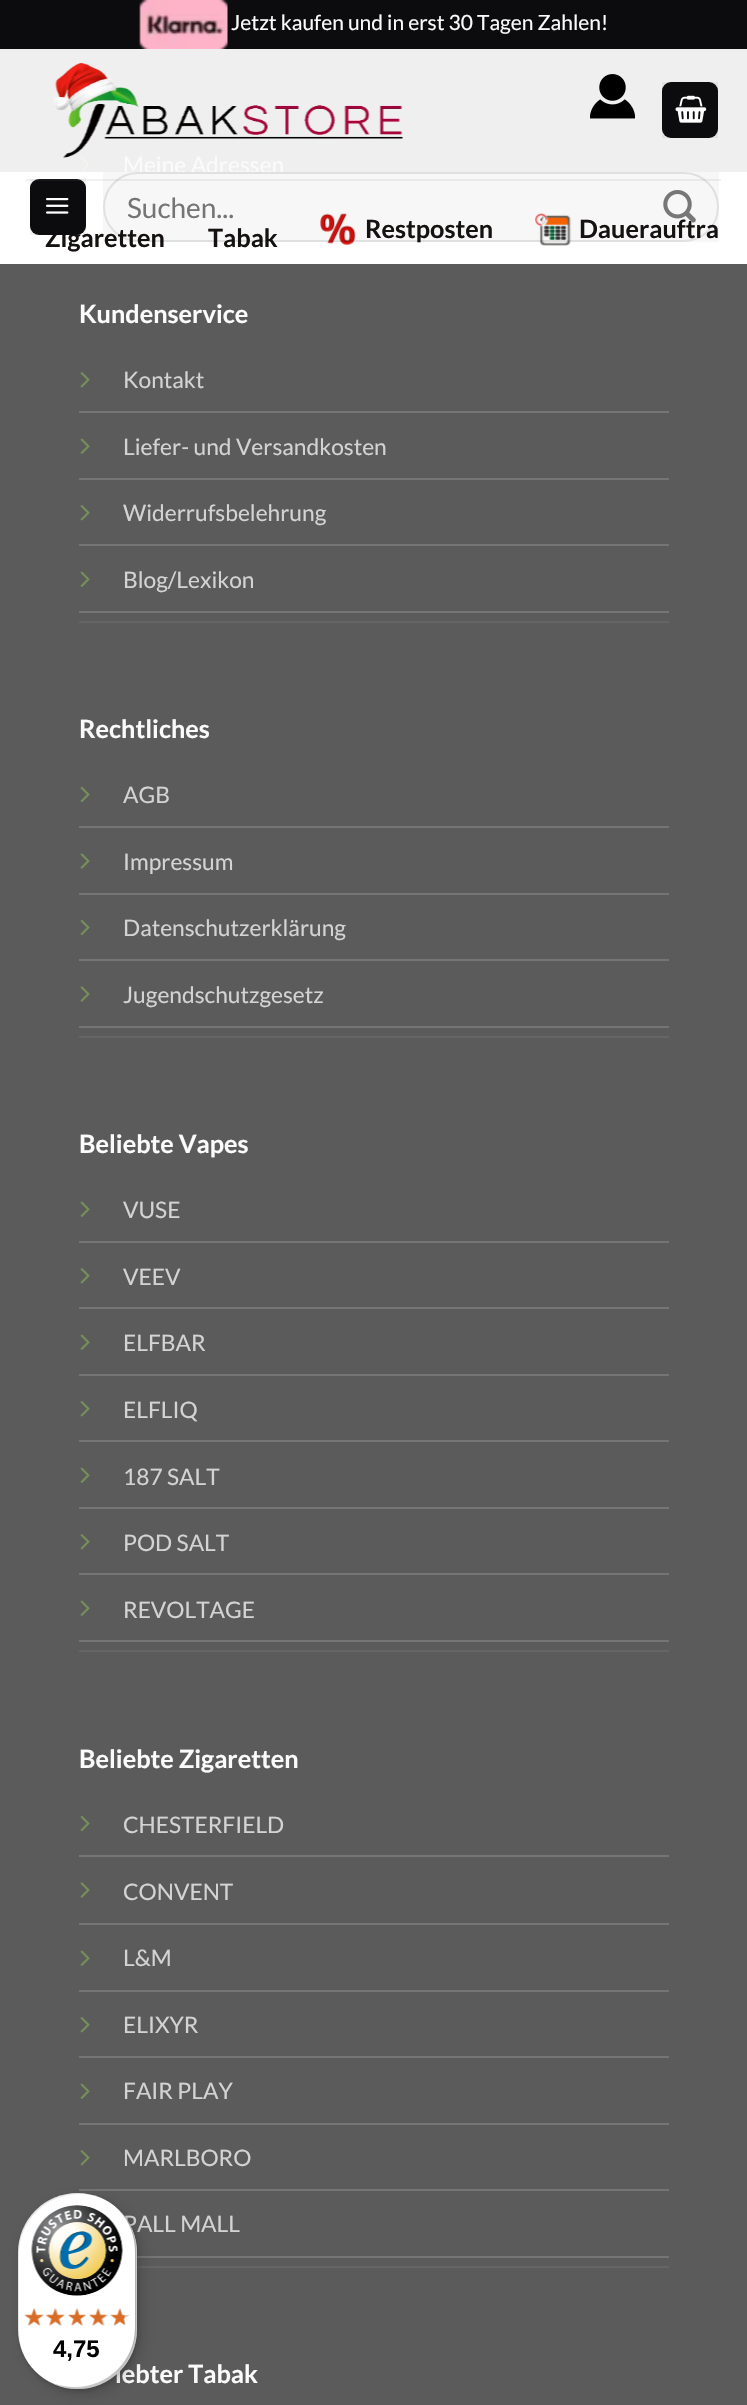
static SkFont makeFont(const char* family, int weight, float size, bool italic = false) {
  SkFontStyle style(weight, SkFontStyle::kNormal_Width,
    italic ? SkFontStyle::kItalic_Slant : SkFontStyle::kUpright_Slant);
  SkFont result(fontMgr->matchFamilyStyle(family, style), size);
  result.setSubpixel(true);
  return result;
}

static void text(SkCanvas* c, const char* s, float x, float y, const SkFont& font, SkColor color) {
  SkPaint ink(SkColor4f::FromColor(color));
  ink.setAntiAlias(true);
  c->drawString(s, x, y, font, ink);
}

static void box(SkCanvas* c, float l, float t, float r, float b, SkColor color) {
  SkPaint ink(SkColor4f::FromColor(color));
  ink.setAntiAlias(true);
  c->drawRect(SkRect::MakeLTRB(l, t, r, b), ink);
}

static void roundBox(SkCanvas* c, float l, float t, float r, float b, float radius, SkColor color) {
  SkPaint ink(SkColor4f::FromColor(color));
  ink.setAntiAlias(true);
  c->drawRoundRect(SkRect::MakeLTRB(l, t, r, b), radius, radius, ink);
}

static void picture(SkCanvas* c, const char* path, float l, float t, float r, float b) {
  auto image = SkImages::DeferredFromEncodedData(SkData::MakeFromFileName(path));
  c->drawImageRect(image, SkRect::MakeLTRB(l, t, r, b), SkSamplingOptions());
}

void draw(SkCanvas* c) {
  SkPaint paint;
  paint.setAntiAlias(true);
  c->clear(0xff5b5b5b);
  box(c, 0, 0, 747, 49, 0xff0c0c0e);
  picture(c, "img_01.png", 139, 0, 228, 49);
  SkFont face1 = makeFont("Lato", 400, 21);
  text(c, "Jetzt kaufen und in erst 30 Tagen Zahlen!", 231, 30, face1, 0xfffbfbfb);
  box(c, 0, 49, 747, 172, 0xffefefef);
  SkFont face2 = makeFont("Lato", 400, 22.75f);
  text(c, "Meine Adressen", 123, 173, face2, 0xfffbfbfb);
  box(c, 0, 172, 747, 264, 0xffffffff);
  SkFont face3 = makeFont("Lato", 700, 25.25f);
  text(c, "Zigaretten", 45, 247, face3, 0xff161212);
  roundBox(c, 30, 179, 86, 235, 9, 0xff0c0c0e);
  paint.setStyle(SkPaint::kStroke_Style);
  paint.setStrokeWidth(2);
  paint.setColor(0x0d000000);
  c->drawRect(SkRect::MakeLTRB(31, 180, 85, 234), paint);
  picture(c, "img_07.png", 320, 213, 356, 245);
  picture(c, "img_08.png", 535, 213, 572, 246);
  box(c, 103, 172, 719, 242, 0x08000000);
  text(c, "Tabak", 208, 247, face3, 0xff161212);
  text(c, "Restposten", 365, 238, face3, 0xff161212);
  text(c, "Dauerauftra", 579, 238, face3, 0xff161212);
  paint.setColor(0x17000000);
  c->drawRoundRect(SkRect::MakeLTRB(104, 173, 718, 241), 34, 34, paint);
  box(c, 26, 179, 721, 181, 0x1a777777);
  picture(c, "img_09.png", 82, 104, 84, 106);
  picture(c, "img_10.png", 80, 156, 90, 172);
  picture(c, "img_02.png", 53, 63, 403, 158);
  picture(c, "img_03.png", 590, 74, 635, 119);
  roundBox(c, 662, 82, 718, 138, 9, 0xff0c0c0e);
  paint.setColor(0x0d000000);
  c->drawRect(SkRect::MakeLTRB(663, 83, 717, 137), paint);
  picture(c, "img_04.png", 675, 95, 707, 123);
  picture(c, "img_05.png", 46, 198, 69, 214);
  SkFont face4 = makeFont("Lato", 400, 28);
  text(c, "Suchen...", 127, 218, face4, 0xff757575);
  picture(c, "img_06.png", 663, 190, 696, 223);
  text(c, "Kundenservice", 79, 323, face3, 0xfffbfbfb);
  box(c, 79, 621, 669, 623, 0xff656565);
  box(c, 79, 411, 669, 413, 0xff757575);
  picture(c, "img_11.png", 80, 372, 90, 388);
  text(c, "Kontakt", 123, 388, face2, 0xffd3d3d3);
  box(c, 79, 478, 669, 480, 0xff757575);
  picture(c, "img_12.png", 80, 438, 90, 454);
  text(c, "Liefer- und Versandkosten", 123, 455, face2, 0xffd3d3d3);
  box(c, 79, 544, 669, 546, 0xff757575);
  picture(c, "img_11.png", 80, 505, 90, 521);
  text(c, "Widerrufsbelehrung", 123, 521, face2, 0xffd3d3d3);
  box(c, 79, 611, 669, 613, 0xff757575);
  picture(c, "img_12.png", 80, 571, 90, 587);
  text(c, "Blog/Lexikon", 123, 588, face2, 0xffd3d3d3);
  text(c, "Rechtliches", 79, 738, face3, 0xfffbfbfb);
  box(c, 79, 1036, 669, 1038, 0xff656565);
  box(c, 79, 826, 669, 828, 0xff757575);
  picture(c, "img_13.png", 80, 786, 90, 803);
  text(c, "AGB", 123, 803, face2, 0xffd3d3d3);
  box(c, 79, 893, 669, 895, 0xff757575);
  picture(c, "img_14.png", 80, 853, 90, 869);
  text(c, "Impressum", 123, 870, face2, 0xffd3d3d3);
  box(c, 79, 959, 669, 961, 0xff757575);
  picture(c, "img_13.png", 80, 919, 90, 936);
  text(c, "Datenschutzerklärung", 123, 936, face2, 0xffd3d3d3);
  box(c, 79, 1026, 669, 1028, 0xff757575);
  picture(c, "img_14.png", 80, 986, 90, 1002);
  text(c, "Jugendschutzgesetz", 123, 1003, face2, 0xffd3d3d3);
  text(c, "Beliebte Vapes", 79, 1153, face3, 0xfffbfbfb);
  box(c, 79, 1650, 669, 1652, 0xff656565);
  box(c, 79, 1241, 669, 1243, 0xff757575);
  picture(c, "img_12.png", 80, 1201, 90, 1217);
  text(c, "VUSE", 123, 1218, face2, 0xffd3d3d3);
  box(c, 79, 1307, 669, 1309, 0xff757575);
  picture(c, "img_11.png", 80, 1268, 90, 1284);
  text(c, "VEEV", 123, 1285, face2, 0xffd3d3d3);
  box(c, 79, 1374, 669, 1376, 0xff757575);
  picture(c, "img_12.png", 80, 1334, 90, 1350);
  text(c, "ELFBAR", 123, 1351, face2, 0xffd3d3d3);
  box(c, 79, 1440, 669, 1442, 0xff757575);
  picture(c, "img_11.png", 80, 1401, 90, 1417);
  text(c, "ELFLIQ", 123, 1418, face2, 0xffd3d3d3);
  box(c, 79, 1507, 669, 1509, 0xff757575);
  picture(c, "img_12.png", 80, 1467, 90, 1483);
  text(c, "187 SALT", 123, 1485, face2, 0xffd3d3d3);
  box(c, 79, 1573, 669, 1575, 0xff757575);
  picture(c, "img_11.png", 80, 1534, 90, 1550);
  text(c, "POD SALT", 123, 1551, face2, 0xffd3d3d3);
  box(c, 79, 1640, 669, 1642, 0xff757575);
  picture(c, "img_12.png", 80, 1600, 90, 1616);
  text(c, "REVOLTAGE", 123, 1618, face2, 0xffd3d3d3);
  text(c, "Beliebte Zigaretten", 79, 1768, face3, 0xfffbfbfb);
  box(c, 137, 2266, 669, 2268, 0xff656565);
  box(c, 79, 1855, 669, 1857, 0xff757575);
  picture(c, "img_13.png", 80, 1815, 90, 1832);
  text(c, "CHESTERFIELD", 123, 1833, face2, 0xffd3d3d3);
  box(c, 79, 1923, 669, 1925, 0xff757575);
  picture(c, "img_14.png", 80, 1882, 90, 1898);
  text(c, "CONVENT", 123, 1900, face2, 0xffd3d3d3);
  box(c, 79, 1990, 669, 1992, 0xff757575);
  picture(c, "img_12.png", 80, 1950, 90, 1966);
  text(c, "L&M", 123, 1966, face2, 0xffd3d3d3);
  box(c, 79, 2056, 669, 2058, 0xff757575);
  picture(c, "img_11.png", 80, 2017, 90, 2033);
  text(c, "ELIXYR", 123, 2033, face2, 0xffd3d3d3);
  box(c, 79, 2123, 669, 2125, 0xff757575);
  picture(c, "img_12.png", 80, 2083, 90, 2099);
  text(c, "FAIR PLAY", 123, 2099, face2, 0xffd3d3d3);
  box(c, 79, 2189, 669, 2191, 0xff757575);
  picture(c, "img_11.png", 80, 2150, 90, 2166);
  text(c, "MARLBORO", 123, 2166, face2, 0xffd3d3d3);
  box(c, 137, 2256, 669, 2258, 0xff757575);
  text(c, "PALL MALL", 123, 2232, face2, 0xffd3d3d3);
  text(c, "iebter Tabak", 115, 2383, face3, 0xfffbfbfb);
  paint.setStyle(SkPaint::kFill_Style);
  paint.setColor(0x26000000);
  paint.setMaskFilter(SkMaskFilter::MakeBlur(kNormal_SkBlurStyle, 7));
  c->drawRoundRect(SkRect::MakeLTRB(23, 2198, 142, 2394), 59.5f, 59.5f, paint);
  paint.setMaskFilter(nullptr);
  paint.setMaskFilter(SkMaskFilter::MakeBlur(kNormal_SkBlurStyle, 2));
  c->drawRoundRect(SkRect::MakeLTRB(19, 2195, 138, 2391), 59.5f, 59.5f, paint);
  paint.setMaskFilter(nullptr);
  roundBox(c, 18, 2193, 137, 2389, 59.5f, 0xffffffff);
  paint.setColor(0x1a000000);
  c->drawPath(SkPathBuilder().moveTo(79, 2194).cubicTo(94, 2194, 107, 2199, 117, 2208).cubicTo(106, 2199, 93, 2193, 78, 2193).cubicTo(45, 2193, 18, 2220, 18, 2252).lineTo(18, 2330).cubicTo(18, 2345, 24, 2358, 33, 2369).cubicTo(24, 2359, 19, 2346, 19, 2331).lineTo(19, 2254).cubicTo(19, 2221, 46, 2194, 79, 2194).close().detach(), paint);
  paint.setColor(0x33000000);
  c->drawPath(SkPathBuilder().moveTo(37, 2373).cubicTo(48, 2383, 62, 2389, 78, 2389).cubicTo(110, 2389, 137, 2362, 137, 2330).lineTo(137, 2252).cubicTo(137, 2234, 129, 2218, 115, 2207).cubicTo(127, 2217, 135, 2233, 135, 2250).lineTo(135, 2328).cubicTo(135, 2360, 108, 2387, 75, 2387).cubicTo(60, 2387, 47, 2382, 37, 2373).close().detach(), paint);
  paint.setColor(0x33323232);
  c->drawPath(SkPathBuilder().moveTo(44, 2379).cubicTo(54, 2385, 65, 2389, 78, 2389).cubicTo(110, 2389, 137, 2362, 137, 2330).lineTo(137, 2252).cubicTo(137, 2233, 127, 2215, 113, 2204).cubicTo(126, 2215, 135, 2232, 135, 2251).lineTo(135, 2328).cubicTo(135, 2361, 109, 2388, 76, 2388).cubicTo(64, 2388, 53, 2385, 44, 2379).close().detach(), paint);
  paint.setColor(0x4dffffff);
  c->drawPath(SkPathBuilder().moveTo(38, 2374).cubicTo(49, 2383, 62, 2389, 78, 2389).cubicTo(110, 2389, 137, 2362, 137, 2330).lineTo(137, 2252).cubicTo(137, 2233, 127, 2215, 112, 2204).cubicTo(127, 2215, 136, 2232, 136, 2251).lineTo(136, 2328).cubicTo(136, 2361, 109, 2388, 76, 2388).cubicTo(61, 2388, 48, 2383, 38, 2374).close().detach(), paint);
  picture(c, "img_15.png", 31, 2205, 123, 2296);
  picture(c, "img_16.png", 24, 2309, 44, 2325);
  picture(c, "img_17.png", 47, 2308, 65, 2326);
  picture(c, "img_18.png", 68, 2309, 86, 2325);
  picture(c, "img_19.png", 89, 2308, 109, 2326);
  picture(c, "img_20.png", 110, 2309, 130, 2325);
  picture(c, "img_21.png", 24, 2308, 44, 2326);
  picture(c, "img_22.png", 45, 2308, 65, 2326);
  picture(c, "img_23.png", 68, 2308, 86, 2326);
  picture(c, "img_24.png", 89, 2308, 107, 2326);
  picture(c, "img_25.png", 110, 2308, 125, 2326);
  SkFont face5 = makeFont("Liberation Sans", 700, 24);
  text(c, "4,75", 53, 2357, face5, 0xff000000);
}
